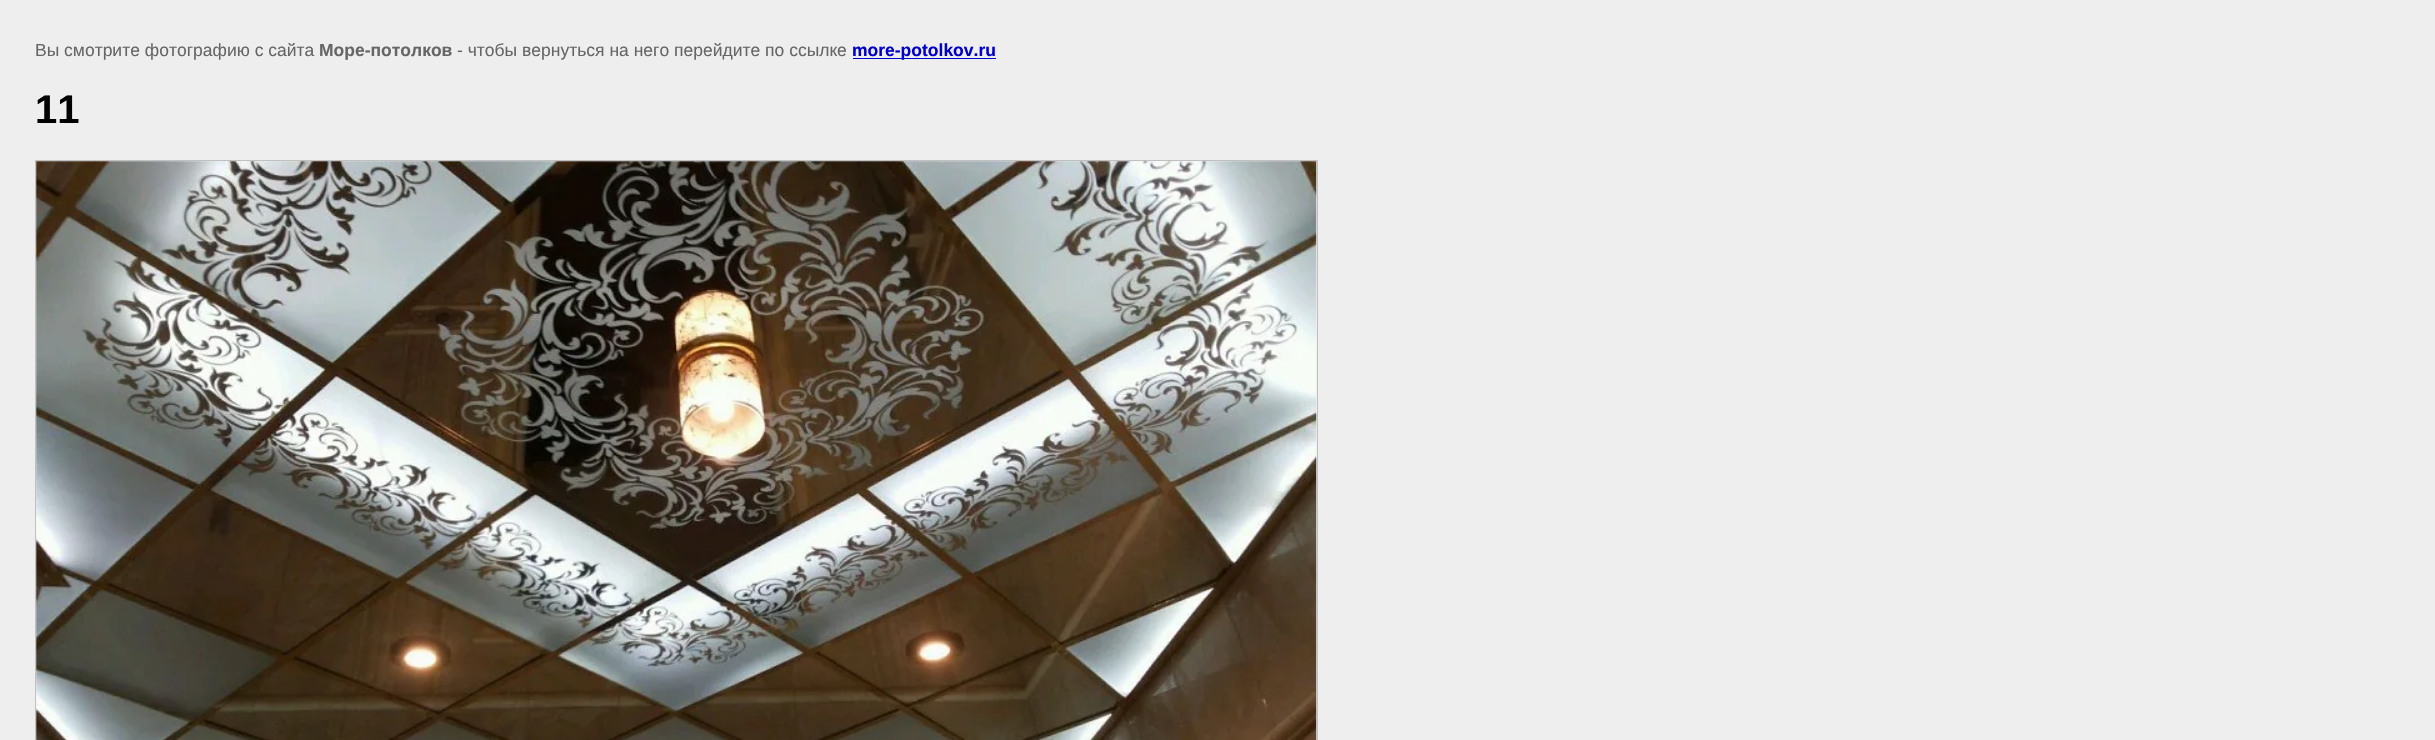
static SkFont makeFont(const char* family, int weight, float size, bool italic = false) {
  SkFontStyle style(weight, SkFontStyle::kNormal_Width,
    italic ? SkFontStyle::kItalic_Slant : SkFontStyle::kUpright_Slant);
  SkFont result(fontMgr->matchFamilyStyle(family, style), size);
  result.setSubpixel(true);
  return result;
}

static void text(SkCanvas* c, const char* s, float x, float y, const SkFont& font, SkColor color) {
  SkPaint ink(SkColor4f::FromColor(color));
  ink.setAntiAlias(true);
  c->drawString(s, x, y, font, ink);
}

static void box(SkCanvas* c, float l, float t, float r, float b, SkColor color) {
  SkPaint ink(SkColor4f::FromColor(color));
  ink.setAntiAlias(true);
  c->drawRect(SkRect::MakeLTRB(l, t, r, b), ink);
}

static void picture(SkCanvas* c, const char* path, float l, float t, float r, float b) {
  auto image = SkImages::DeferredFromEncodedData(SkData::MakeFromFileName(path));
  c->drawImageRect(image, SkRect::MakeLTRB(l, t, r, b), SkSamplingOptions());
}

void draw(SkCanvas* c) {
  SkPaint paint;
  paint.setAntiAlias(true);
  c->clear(0xffeeeeee);
  SkFont face1 = makeFont("Liberation Sans", 400, 17.5f);
  text(c, "Вы смотрите фотографию с сайта", 35, 56, face1, 0xff666666);
  SkFont face2 = makeFont("Liberation Sans", 700, 17.5f);
  text(c, "Море-потолков", 319, 56, face2, 0xff666666);
  text(c, "- чтобы вернуться на него перейдите по ссылке", 457, 56, face1, 0xff666666);
  box(c, 853, 58, 996, 59, 0xff0000cc);
  text(c, "more-potolkov.ru", 852, 56, face2, 0xff0000cc);
  SkFont face3 = makeFont("Liberation Sans", 700, 40);
  text(c, "11", 35, 123, face3, 0xff000000);
  paint.setStyle(SkPaint::kStroke_Style);
  paint.setStrokeWidth(1);
  paint.setColor(0xffc0c0c0);
  c->drawRect(SkRect::MakeLTRB(35.5f, 160.5f, 1317.5f, 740.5f), paint);
  picture(c, "img_01.png", 36, 161, 1317, 740);
}
